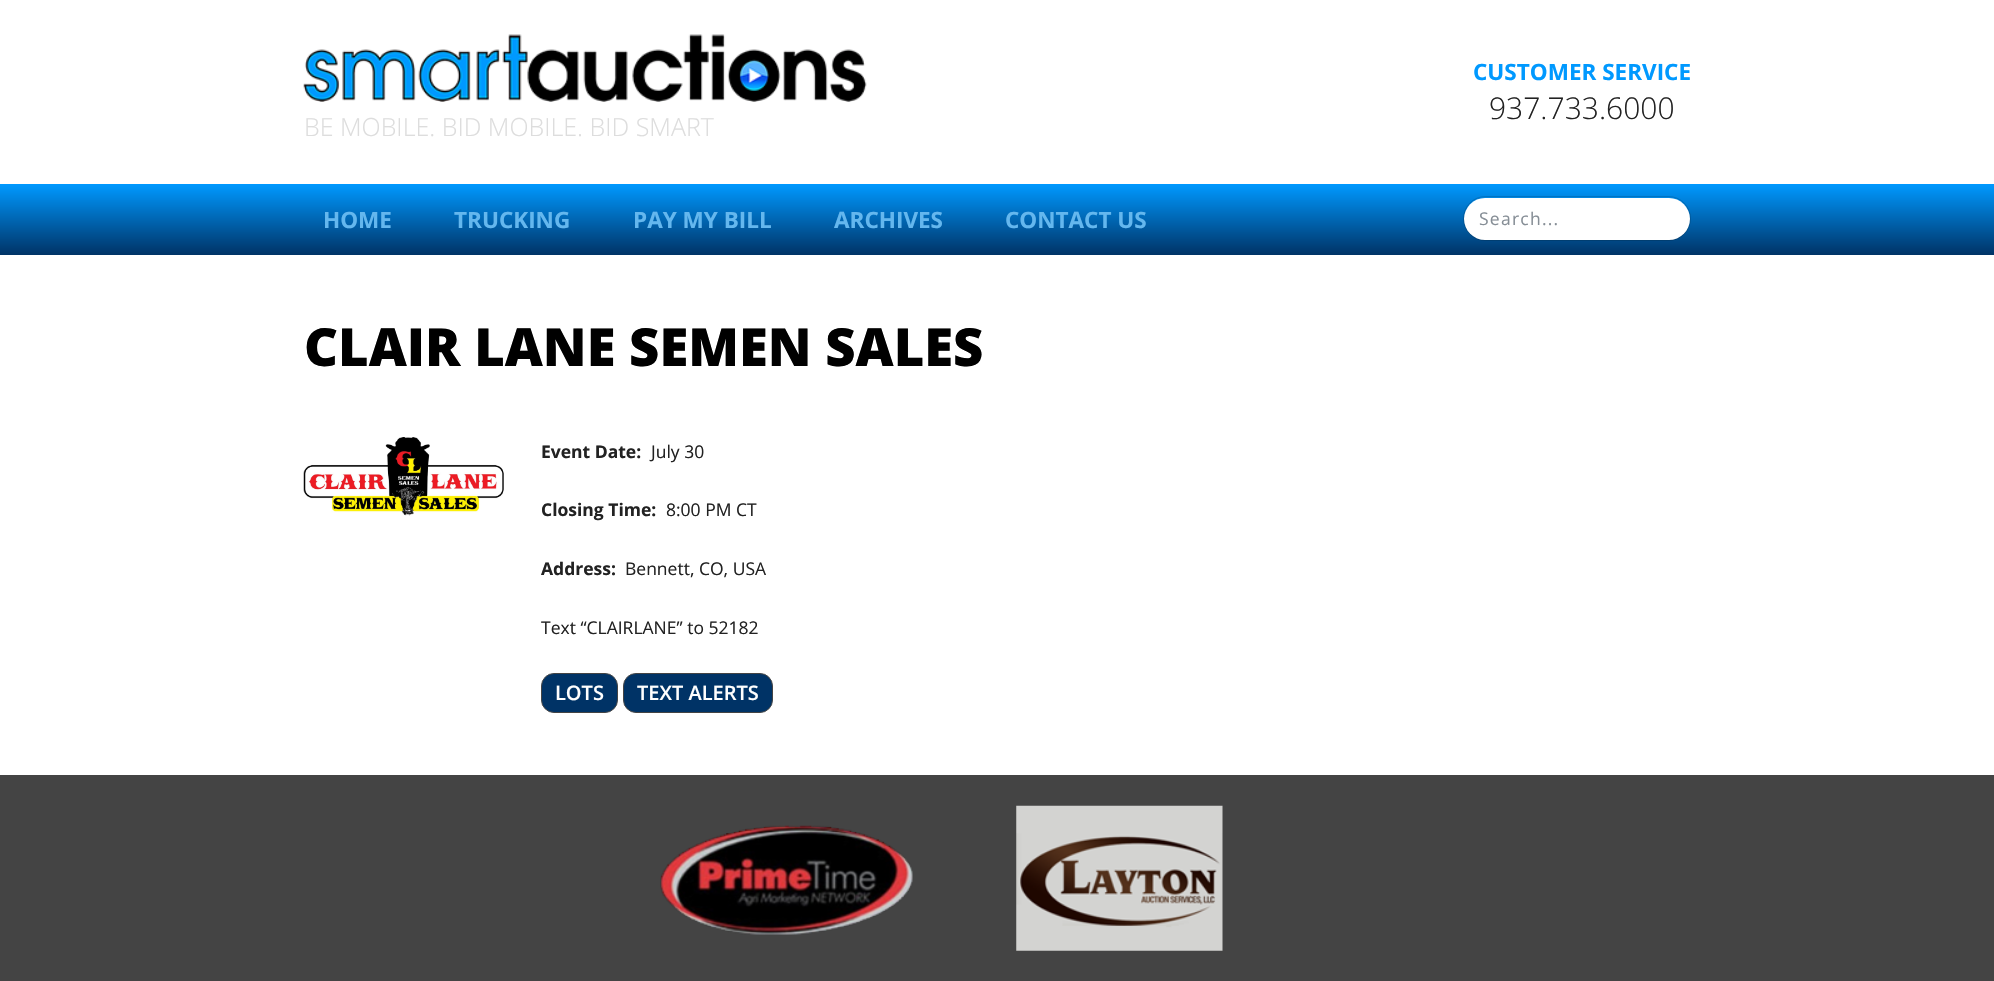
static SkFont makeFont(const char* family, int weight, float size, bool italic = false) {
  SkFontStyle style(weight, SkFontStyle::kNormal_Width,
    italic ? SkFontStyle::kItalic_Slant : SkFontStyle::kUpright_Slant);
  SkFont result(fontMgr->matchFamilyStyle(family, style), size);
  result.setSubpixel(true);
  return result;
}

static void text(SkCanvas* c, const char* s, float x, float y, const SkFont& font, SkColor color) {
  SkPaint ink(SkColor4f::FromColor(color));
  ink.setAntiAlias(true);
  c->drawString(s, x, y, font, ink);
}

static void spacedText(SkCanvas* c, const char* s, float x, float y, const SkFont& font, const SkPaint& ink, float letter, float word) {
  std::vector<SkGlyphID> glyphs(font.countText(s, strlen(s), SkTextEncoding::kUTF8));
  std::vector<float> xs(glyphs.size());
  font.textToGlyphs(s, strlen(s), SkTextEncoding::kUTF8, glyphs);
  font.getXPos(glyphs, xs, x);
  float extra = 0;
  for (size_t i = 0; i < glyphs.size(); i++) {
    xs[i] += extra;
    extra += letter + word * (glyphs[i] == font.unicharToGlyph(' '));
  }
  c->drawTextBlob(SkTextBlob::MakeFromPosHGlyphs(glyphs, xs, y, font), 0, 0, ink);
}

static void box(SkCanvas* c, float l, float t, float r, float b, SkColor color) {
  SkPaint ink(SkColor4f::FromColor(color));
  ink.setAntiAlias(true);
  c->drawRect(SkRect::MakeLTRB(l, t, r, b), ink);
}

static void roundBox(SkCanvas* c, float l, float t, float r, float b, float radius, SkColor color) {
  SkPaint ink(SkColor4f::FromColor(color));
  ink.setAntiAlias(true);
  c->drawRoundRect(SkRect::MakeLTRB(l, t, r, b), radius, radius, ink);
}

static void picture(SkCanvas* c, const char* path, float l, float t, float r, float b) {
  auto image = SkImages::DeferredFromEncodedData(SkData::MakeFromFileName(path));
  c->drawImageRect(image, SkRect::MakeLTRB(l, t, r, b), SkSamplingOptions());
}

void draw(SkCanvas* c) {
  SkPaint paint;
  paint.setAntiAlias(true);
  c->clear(0xffffffff);
  SkFont face1 = makeFont("Open Sans", 700, 22.5f);
  text(c, "CUSTOMER SERVICE", 1473, 80, face1, 0xff0099ff);
  SkFont face2 = makeFont("Open Sans", 300, 30);
  text(c, "937.733.6000", 1489, 119, face2, 0xff222222);
  picture(c, "img_01.png", 303, 34, 867, 102);
  SkFont face3 = makeFont("Open Sans", 300, 25);
  text(c, "BE MOBILE. BID MOBILE. BID SMART", 304, 136, face3, 0xffdddddd);
  {
    const SkColor colors[] = {0xff0099ff, 0xff003366};
    const float stops[] = {0, 1};
    const SkPoint ends[] = {{998, 184}, {998, 255}};
    paint.setShader(SkGradientShader::MakeLinear(ends, colors, stops, 2, SkTileMode::kClamp));
    paint.setAlpha(255);
  }
  c->drawRect(SkRect::MakeLTRB(0, 184, 1994, 255), paint);
  text(c, "HOME", 323, 228, face1, 0xff64b7ee);
  text(c, "TRUCKING", 454, 228, face1, 0xff64b7ee);
  text(c, "PAY MY BILL", 633, 228, face1, 0xff64b7ee);
  text(c, "ARCHIVES", 834, 228, face1, 0xff64b7ee);
  text(c, "CONTACT US", 1005, 228, face1, 0xff64b7ee);
  roundBox(c, 1464, 198, 1690, 240, 21, 0xffffffff);
  paint.setStyle(SkPaint::kStroke_Style);
  paint.setStrokeWidth(1);
  paint.setShader(nullptr);
  paint.setColor(0x26000000);
  c->drawRoundRect(SkRect::MakeLTRB(1463.5f, 196.5f, 1690.5f, 240.5f), 22, 22, paint);
  SkFont face4 = makeFont("Open Sans", 400, 17.5f);
  paint.setStyle(SkPaint::kFill_Style);
  paint.setColor(0xff868e96);
  spacedText(c, "Search...", 1479, 225, face4, paint, 1.25f, 0);
  SkFont face5 = makeFont("Open Sans", 800, 52.5f);
  text(c, "CLAIR LANE SEMEN SALES", 304, 366, face5, 0xff000000);
  picture(c, "img_02.png", 303, 437, 504, 516);
  SkFont face6 = makeFont("Open Sans", 700, 17.5f);
  text(c, "Event Date:", 541, 458, face6, 0xff222222);
  text(c, "July 30", 651, 458, face4, 0xff222222);
  text(c, "Closing Time:", 541, 516, face6, 0xff222222);
  text(c, "8:00 PM CT", 666, 516, face4, 0xff222222);
  text(c, "Address:", 541, 575, face6, 0xff222222);
  text(c, "Bennett, CO, USA", 625, 575, face4, 0xff222222);
  text(c, "Text “CLAIRLANE” to 52182", 541, 634, face4, 0xff222222);
  paint.setColor(0xff003366);
  c->drawRoundRect(SkRect::MakeLTRB(541.5f, 673.5f, 617.5f, 712.5f), 12.5f, 12.5f, paint);
  paint.setStyle(SkPaint::kStroke_Style);
  paint.setColor(0xff444444);
  c->drawRoundRect(SkRect::MakeLTRB(541.5f, 673.5f, 617.5f, 712.5f), 12.5f, 12.5f, paint);
  SkFont face7 = makeFont("Open Sans", 600, 20);
  text(c, "LOTS", 555, 700, face7, 0xffffffff);
  paint.setStyle(SkPaint::kFill_Style);
  paint.setColor(0xff003366);
  c->drawRoundRect(SkRect::MakeLTRB(623.5f, 673.5f, 772.5f, 712.5f), 12.5f, 12.5f, paint);
  paint.setStyle(SkPaint::kStroke_Style);
  paint.setColor(0xff444444);
  c->drawRoundRect(SkRect::MakeLTRB(623.5f, 673.5f, 772.5f, 712.5f), 12.5f, 12.5f, paint);
  text(c, "TEXT ALERTS", 637, 700, face7, 0xffffffff);
  box(c, 0, 775, 1994, 981, 0xff444444);
  picture(c, "img_03.png", 660, 825, 913, 935);
  picture(c, "img_04.png", 1016, 805, 1223, 951);
}
